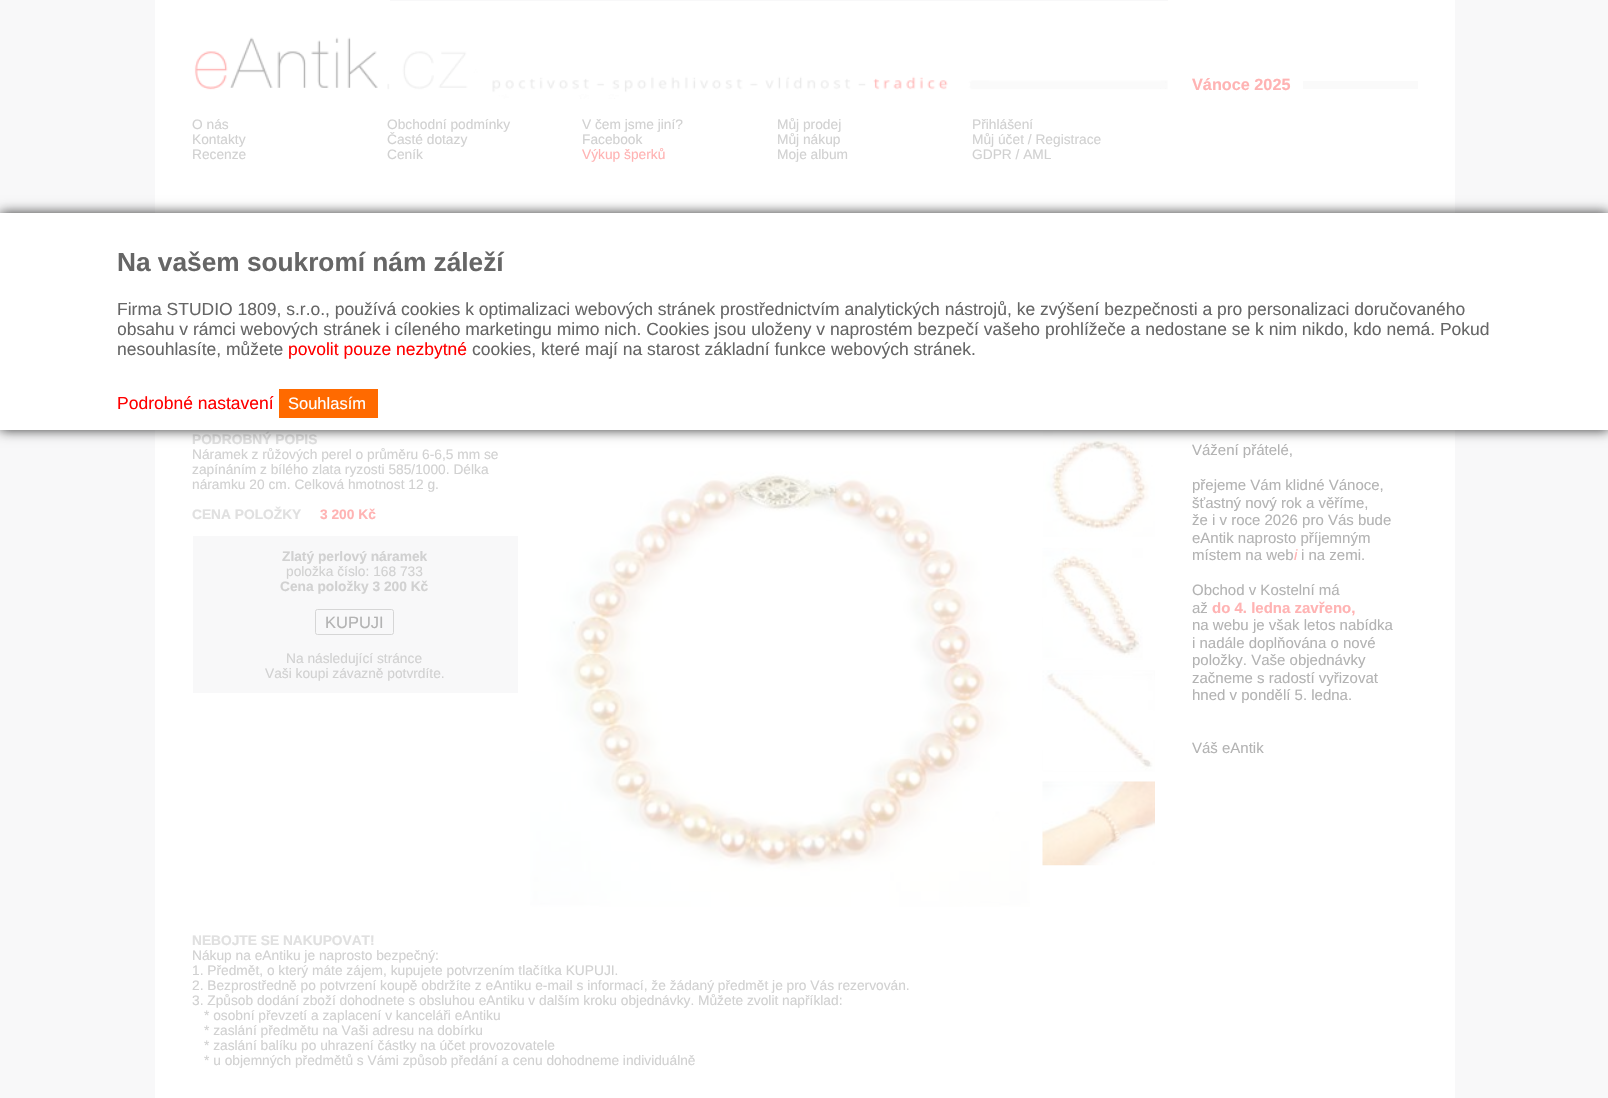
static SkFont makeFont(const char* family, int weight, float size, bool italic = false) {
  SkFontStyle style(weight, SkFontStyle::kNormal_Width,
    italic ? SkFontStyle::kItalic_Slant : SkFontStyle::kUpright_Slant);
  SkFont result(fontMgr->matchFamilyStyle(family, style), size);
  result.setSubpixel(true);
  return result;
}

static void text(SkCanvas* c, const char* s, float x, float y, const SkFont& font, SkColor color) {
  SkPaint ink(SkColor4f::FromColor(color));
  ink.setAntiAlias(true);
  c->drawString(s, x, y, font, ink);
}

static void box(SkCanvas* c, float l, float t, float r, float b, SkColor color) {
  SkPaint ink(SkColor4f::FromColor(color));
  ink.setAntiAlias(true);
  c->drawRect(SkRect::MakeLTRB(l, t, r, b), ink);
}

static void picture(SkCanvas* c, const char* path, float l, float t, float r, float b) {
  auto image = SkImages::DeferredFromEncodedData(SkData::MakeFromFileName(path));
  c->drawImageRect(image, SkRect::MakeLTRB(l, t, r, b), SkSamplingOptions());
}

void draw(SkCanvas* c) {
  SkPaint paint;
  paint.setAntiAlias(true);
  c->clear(0xfff8f8f9);
  box(c, 155, 0, 1455, 1098, 0xffffffff);
  box(c, 390, 0, 1168, 1, 0xfff8f8f9);
  picture(c, "img_01.png", 194, 37, 1168, 99);
  SkFont face1 = makeFont("Liberation Sans", 400, 13.75f);
  text(c, "O nás", 192, 129, face1, 0xffd1d1d1);
  text(c, "Kontakty", 192, 144, face1, 0xffd1d1d1);
  text(c, "Recenze", 192, 159, face1, 0xffd1d1d1);
  text(c, "Obchodní podmínky", 387, 129, face1, 0xffd1d1d1);
  text(c, "Časté dotazy", 387, 144, face1, 0xffd1d1d1);
  text(c, "Ceník", 387, 159, face1, 0xffd1d1d1);
  text(c, "V čem jsme jiní?", 582, 129, face1, 0xffd1d1d1);
  text(c, "Facebook", 582, 144, face1, 0xffd1d1d1);
  text(c, "Výkup šperků", 582, 159, face1, 0xffffb3b3);
  text(c, "Můj prodej", 777, 129, face1, 0xffd1d1d1);
  text(c, "Můj nákup", 777, 144, face1, 0xffd1d1d1);
  text(c, "Moje album", 777, 159, face1, 0xffd1d1d1);
  text(c, "Přihlášení", 972, 129, face1, 0xffd1d1d1);
  text(c, "Můj účet / Registrace", 972, 144, face1, 0xffd1d1d1);
  text(c, "GDPR / AML", 972, 159, face1, 0xffd1d1d1);
  SkFont face2 = makeFont("Liberation Sans", 700, 13.75f);
  text(c, "PODROBNÝ POPIS", 192, 444, face2, 0xffe0e0e0);
  text(c, "Náramek z růžových perel o průměru 6-6,5 mm se", 192, 459, face1, 0xffd1d1d1);
  text(c, "zapínáním z bílého zlata ryzosti 585/1000. Délka", 192, 474, face1, 0xffd1d1d1);
  text(c, "náramku 20 cm. Celková hmotnost 12 g.", 192, 489, face1, 0xffd1d1d1);
  text(c, "CENA POLOŽKY", 192, 519, face2, 0xffe0e0e0);
  text(c, "3 200 Kč", 320, 519, face2, 0xffffb3b3);
  box(c, 193, 536, 518, 693, 0xfff8f8f9);
  text(c, "Zlatý perlový náramek", 282, 561, face2, 0xffd1d1d1);
  text(c, "položka číslo: 168 733", 286, 576, face1, 0xffd1d1d1);
  text(c, "Cena položky 3 200 Kč", 280, 591, face2, 0xffd1d1d1);
  paint.setStyle(SkPaint::kStroke_Style);
  paint.setStrokeWidth(1);
  paint.setColor(0xffd6d6d6);
  c->drawRoundRect(SkRect::MakeLTRB(315.5f, 609.5f, 393.5f, 634.5f), 2, 2, paint);
  SkFont face3 = makeFont("Liberation Sans", 400, 16.5f);
  text(c, "KUPUJI", 325, 628, face3, 0xffb3b3b3);
  text(c, "Na následující stránce", 286, 663, face1, 0xffd1d1d1);
  text(c, "Vaši koupi závazně potvrdíte.", 265, 678, face1, 0xffd1d1d1);
  picture(c, "img_02.png", 530, 471, 1030, 907);
  text(c, "NEBOJTE SE NAKUPOVAT!", 192, 945, face2, 0xffe0e0e0);
  text(c, "Nákup na eAntiku je naprosto bezpečný:", 192, 960, face1, 0xffd1d1d1);
  text(c, "1. Předmět, o který máte zájem, kupujete potvrzením tlačítka KUPUJI.", 192, 975, face1, 0xffd1d1d1);
  text(c, "2. Bezprostředně po potvrzení koupě obdržíte z eAntiku e-mail s informací, že žádaný předmět je pro Vás rezervován.", 192, 990, face1, 0xffd1d1d1);
  text(c, "3. Způsob dodání zboží dohodnete s obsluhou eAntiku v dalším kroku objednávky. Můžete zvolit například:", 192, 1005, face1, 0xffd1d1d1);
  text(c, "* osobní převzetí a zaplacení v kanceláři eAntiku", 204, 1020, face1, 0xffd1d1d1);
  text(c, "* zaslání předmětu na Vaši adresu na dobírku", 204, 1035, face1, 0xffd1d1d1);
  text(c, "* zaslání balíku po uhrazení částky na účet provozovatele", 204, 1050, face1, 0xffd1d1d1);
  text(c, "* u objemných předmětů s Vámi způsob předání a cenu dohodneme individuálně", 204, 1065, face1, 0xffd1d1d1);
  picture(c, "img_03.png", 1043, 431, 1155, 537);
  picture(c, "img_04.png", 1042, 547, 1143, 660);
  picture(c, "img_05.png", 1042, 670, 1155, 772);
  picture(c, "img_06.png", 1042, 781, 1155, 866);
  SkFont face4 = makeFont("Liberation Sans", 700, 16.25f);
  text(c, "Vánoce 2025", 1192, 90, face4, 0xffffb3b3);
  box(c, 1303, 81, 1418, 89, 0xfffafafa);
  SkFont face5 = makeFont("Liberation Sans", 400, 15);
  text(c, "Vážení přátelé,", 1192, 455, face5, 0xffb3b3b3);
  text(c, "přejeme Vám klidné Vánoce,", 1192, 490, face5, 0xffb3b3b3);
  text(c, "šťastný nový rok a věříme,", 1192, 508, face5, 0xffb3b3b3);
  text(c, "že i v roce 2026 pro Vás bude", 1192, 525, face5, 0xffb3b3b3);
  text(c, "eAntik naprosto příjemným", 1192, 543, face5, 0xffb3b3b3);
  text(c, "místem na web", 1192, 560, face5, 0xffb3b3b3);
  SkFont face6 = makeFont("Liberation Sans", 400, 15, true);
  text(c, "i", 1294, 560, face6, 0xffffb3b3);
  text(c, "i na zemi.", 1301, 560, face5, 0xffb3b3b3);
  text(c, "Obchod v Kostelní má", 1192, 595, face5, 0xffb3b3b3);
  text(c, "až", 1192, 613, face5, 0xffb3b3b3);
  SkFont face7 = makeFont("Liberation Sans", 700, 15);
  text(c, "do 4. ledna zavřeno,", 1212, 613, face7, 0xffffb3b3);
  text(c, "na webu je však letos nabídka", 1192, 630, face5, 0xffb3b3b3);
  text(c, "i nadále doplňována o nové", 1192, 648, face5, 0xffb3b3b3);
  text(c, "položky. Vaše objednávky", 1192, 665, face5, 0xffb3b3b3);
  text(c, "začneme s radostí vyřizovat", 1192, 683, face5, 0xffb3b3b3);
  text(c, "hned v pondělí 5. ledna.", 1192, 700, face5, 0xffb3b3b3);
  text(c, "Váš eAntik", 1192, 753, face5, 0xffb3b3b3);
  paint.setStyle(SkPaint::kFill_Style);
  paint.setColor(0xcc000000);
  paint.setMaskFilter(SkMaskFilter::MakeBlur(kNormal_SkBlurStyle, 6));
  c->drawRect(SkRect::MakeLTRB(0, 213, 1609, 430), paint);
  paint.setMaskFilter(nullptr);
  box(c, 0, 213, 1608, 430, 0xffffffff);
  SkFont face8 = makeFont("Liberation Sans", 700, 26.25f);
  text(c, "Na vašem soukromí nám záleží", 117, 271, face8, 0xff666666);
  SkFont face9 = makeFont("Liberation Sans", 400, 17.5f);
  text(c, "Firma STUDIO 1809, s.r.o., používá cookies k optimalizaci webových stránek prostřednictvím analytických nástrojů, ke zvýšení bezpečnosti a pro personalizaci doručovaného", 117, 315, face9, 0xff666666);
  c->save();
  c->clipRect(SkRect::MakeLTRB(118, 225, 1493, 418));
  text(c, "obsahu v rámci webových stránek i cíleného marketingu mimo nich. Cookies jsou uloženy v naprostém bezpečí vašeho prohlížeče a nedostane se k nim nikdo, kdo nemá. Pokud", 117, 335, face9, 0xff666666);
  c->restore();
  text(c, "nesouhlasíte, můžete", 117, 355, face9, 0xff666666);
  text(c, "povolit pouze nezbytné", 288, 355, face9, 0xffff0000);
  text(c, "cookies, které mají na starost základní funkce webových stránek.", 472, 355, face9, 0xff666666);
  text(c, "Podrobné nastavení", 117, 409, face9, 0xffff0000);
  box(c, 279, 389, 378, 418, 0xffff6a00);
  text(c, "Souhlasím", 288, 409, face3, 0xffffffff);
}
